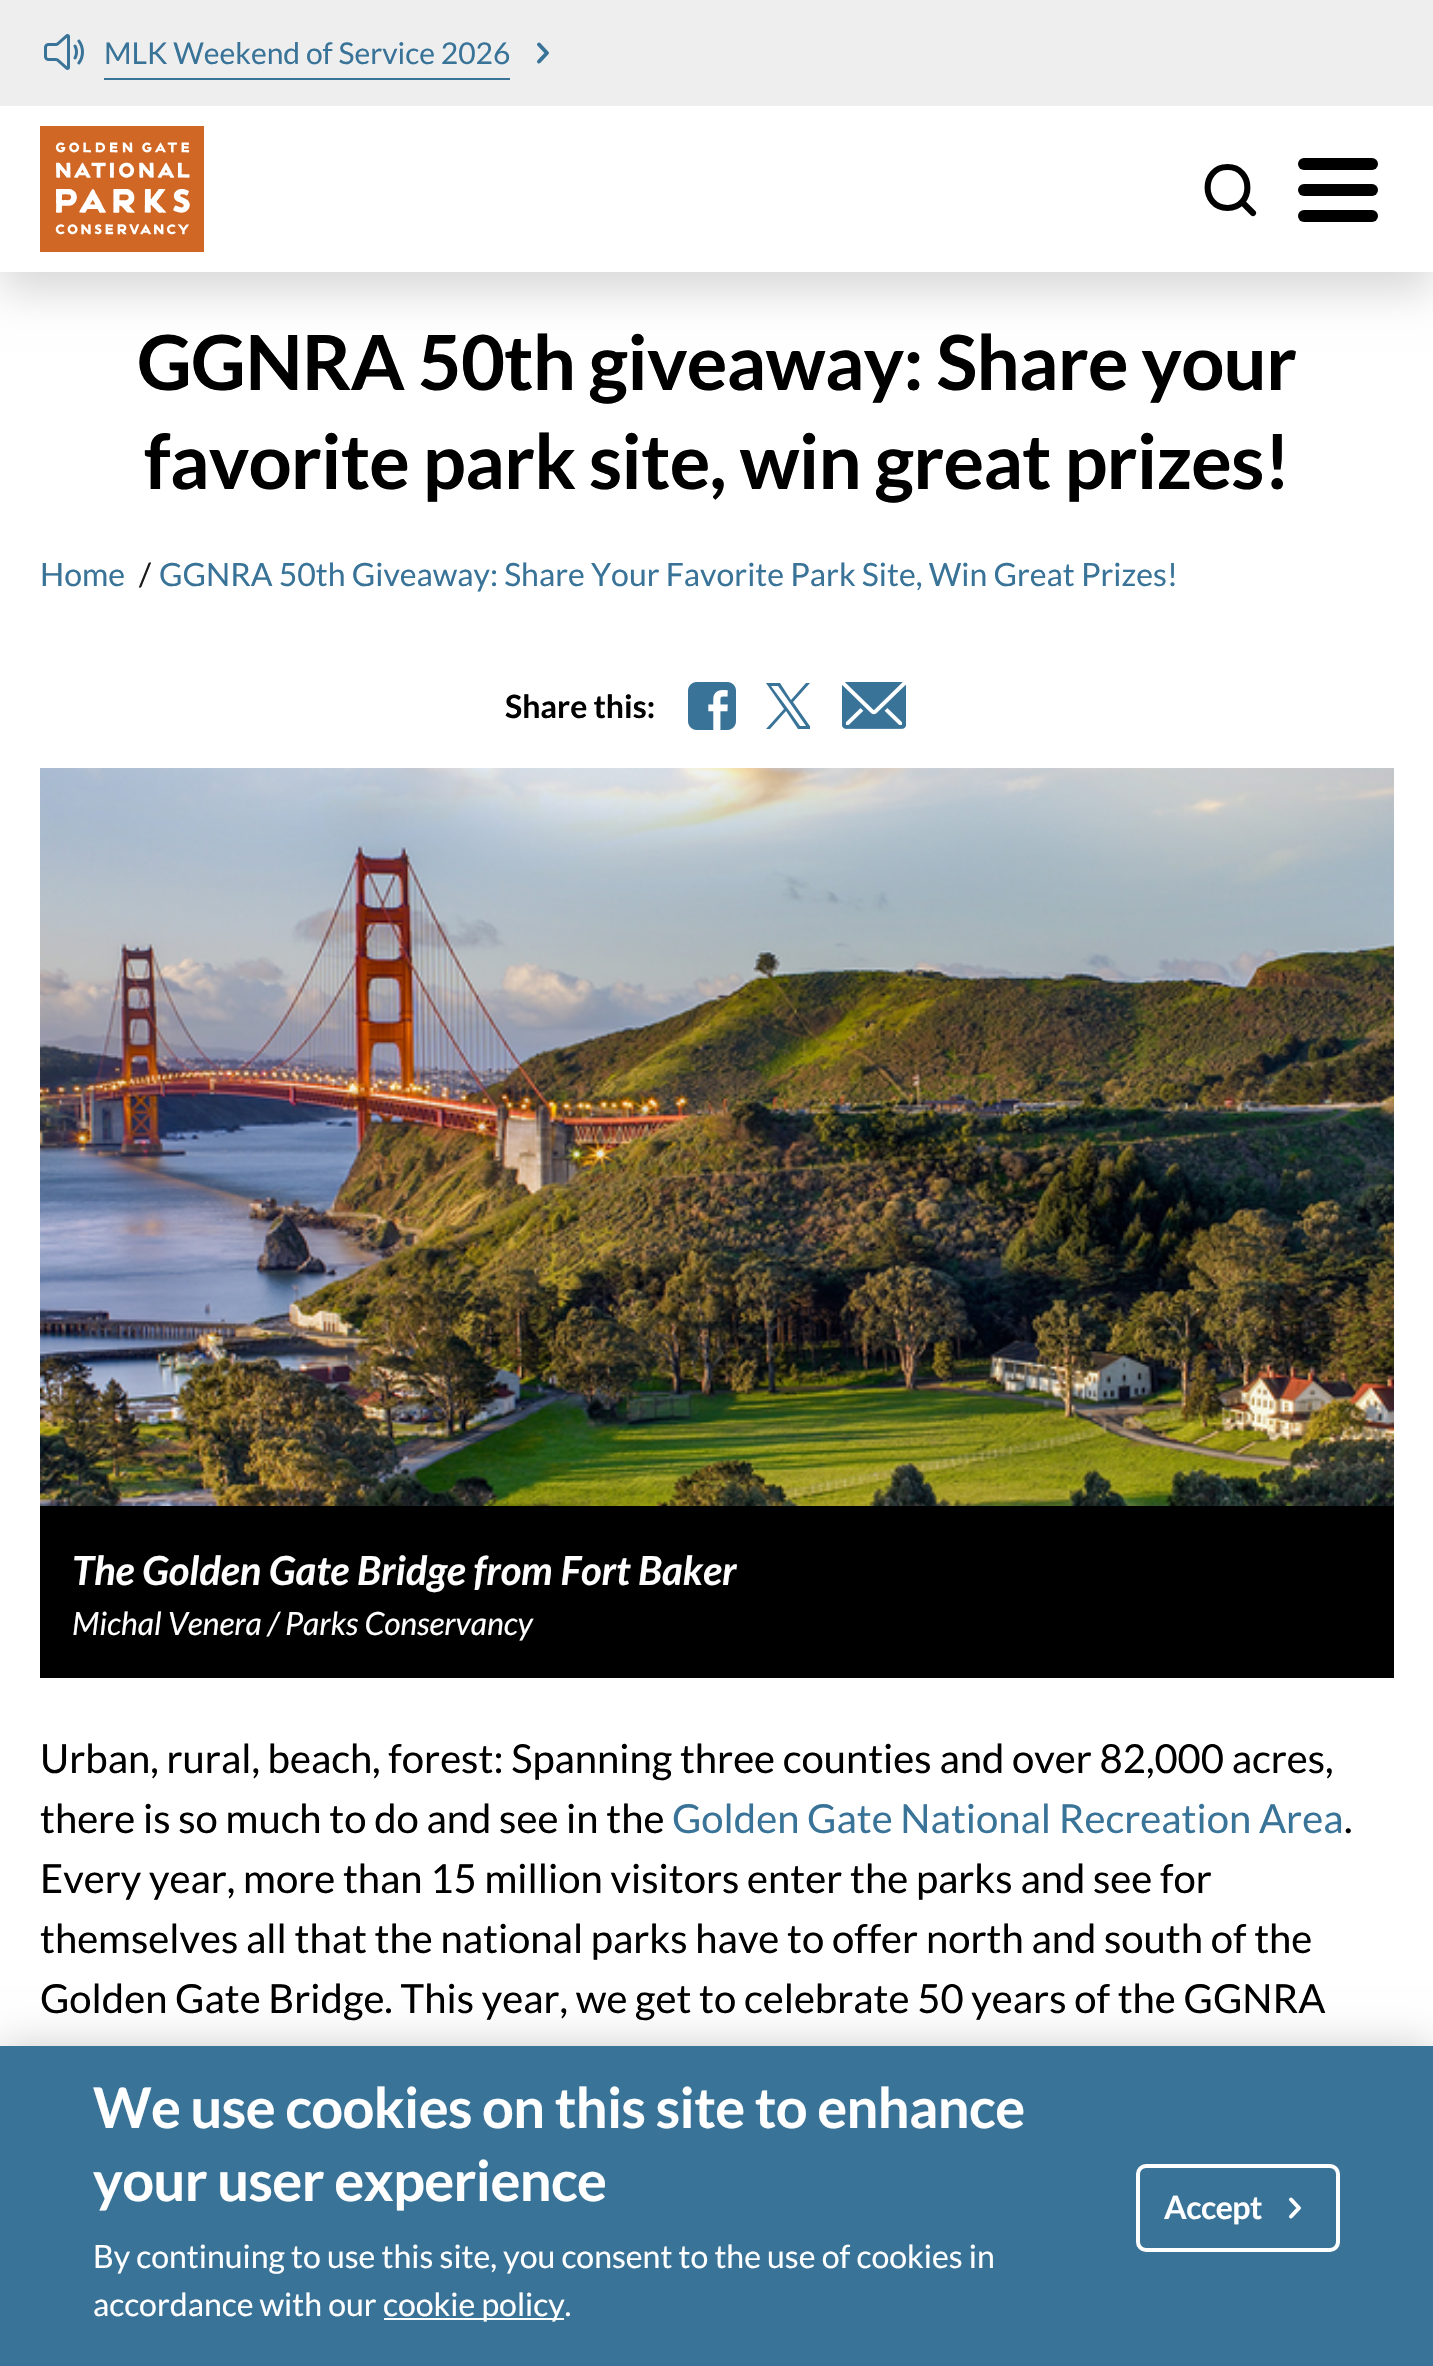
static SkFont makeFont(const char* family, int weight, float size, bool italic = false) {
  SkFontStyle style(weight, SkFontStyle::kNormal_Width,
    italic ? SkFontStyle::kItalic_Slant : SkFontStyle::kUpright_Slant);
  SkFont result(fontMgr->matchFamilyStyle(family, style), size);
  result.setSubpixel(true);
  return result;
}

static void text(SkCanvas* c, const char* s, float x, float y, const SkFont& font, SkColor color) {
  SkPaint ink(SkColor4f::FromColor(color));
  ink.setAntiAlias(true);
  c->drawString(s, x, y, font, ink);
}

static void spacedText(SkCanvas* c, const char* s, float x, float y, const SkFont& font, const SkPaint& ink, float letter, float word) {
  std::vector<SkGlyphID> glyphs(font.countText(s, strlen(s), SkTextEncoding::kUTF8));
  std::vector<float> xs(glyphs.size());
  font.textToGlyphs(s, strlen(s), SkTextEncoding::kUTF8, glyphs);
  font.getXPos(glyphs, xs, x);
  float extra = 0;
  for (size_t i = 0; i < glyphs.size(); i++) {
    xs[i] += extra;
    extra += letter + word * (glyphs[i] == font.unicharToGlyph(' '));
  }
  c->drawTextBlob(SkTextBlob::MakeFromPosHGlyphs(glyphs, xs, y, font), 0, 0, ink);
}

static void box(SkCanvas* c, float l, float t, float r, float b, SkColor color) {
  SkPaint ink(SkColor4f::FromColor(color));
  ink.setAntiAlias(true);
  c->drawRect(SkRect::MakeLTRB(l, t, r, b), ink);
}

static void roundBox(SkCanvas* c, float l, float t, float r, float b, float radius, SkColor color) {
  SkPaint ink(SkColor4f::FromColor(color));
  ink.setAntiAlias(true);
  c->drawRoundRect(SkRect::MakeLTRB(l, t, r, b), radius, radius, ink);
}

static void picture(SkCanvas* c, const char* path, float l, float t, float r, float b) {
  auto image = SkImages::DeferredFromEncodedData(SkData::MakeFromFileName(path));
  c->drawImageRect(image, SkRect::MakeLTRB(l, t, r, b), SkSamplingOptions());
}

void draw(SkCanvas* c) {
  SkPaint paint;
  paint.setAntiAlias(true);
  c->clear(0xffffffff);
  paint.setColor(0x26000000);
  paint.setMaskFilter(SkMaskFilter::MakeBlur(kNormal_SkBlurStyle, 20));
  c->drawRect(SkRect::MakeLTRB(0, 20, 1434, 292), paint);
  paint.setMaskFilter(nullptr);
  box(c, 0, 0, 1433, 106, 0xffeeeeee);
  picture(c, "img_01.png", 44, 34, 84, 70);
  SkFont face1 = makeFont("Lato", 400, 30);
  text(c, "MLK Weekend of Service 2026", 104, 64, face1, 0xff397398);
  box(c, 104, 78, 510, 80, 0xff397398);
  paint.setStyle(SkPaint::kStroke_Style);
  paint.setStrokeWidth(4);
  paint.setStrokeCap(SkPaint::kRound_Cap);
  paint.setStrokeJoin(SkPaint::kRound_Join);
  paint.setColor(0xff397398);
  c->drawPath(SkPathBuilder().moveTo(539, 61.5f).lineTo(547, 53).lineTo(539, 44.5f).detach(), paint);
  box(c, 0, 106, 1433, 272, 0xffffffff);
  picture(c, "img_02.png", 40, 126, 204, 252);
  paint.setStrokeWidth(6.1f);
  paint.setColor(0xff000000);
  c->drawPath(SkPathBuilder().moveTo(1227.5f, 208).cubicTo(1254, 208, 1254, 167, 1227.5f, 167).cubicTo(1201, 167, 1201, 208, 1227.5f, 208).close().moveTo(1253, 213).lineTo(1242, 202).detach(), paint);
  roundBox(c, 1298, 158, 1378, 170, 6, 0xff000000);
  roundBox(c, 1298, 184, 1378, 196, 6, 0xff000000);
  roundBox(c, 1298, 210, 1378, 222, 6, 0xff000000);
  SkFont face2 = makeFont("Lato", 700, 76);
  paint.setStyle(SkPaint::kFill_Style);
  spacedText(c, "GGNRA 50th giveaway: Share your", 137, 390, face2, paint, -0.85f, 0);
  spacedText(c, "favorite park site, win great prizes!", 144, 489, face2, paint, -0.85f, 0);
  SkFont face3 = makeFont("Lato", 400, 32);
  text(c, "Home", 40, 586, face3, 0xff397398);
  text(c, "/", 139, 586, face3, 0xff1a1a1a);
  text(c, "GGNRA 50th Giveaway: Share Your Favorite Park Site, Win Great Prizes!", 159, 586, face3, 0xff397398);
  SkFont face4 = makeFont("Lato", 700, 32);
  text(c, "Share this:", 505, 718, face4, 0xff000000);
  picture(c, "img_03.png", 688, 682, 736, 730);
  c->save();
  c->clipRect(SkRect::MakeLTRB(766, 682, 810, 730));
  paint.setColor(0xff397398);
  c->drawPath(SkPathBuilder().moveTo(793, 702).lineTo(810, 683).lineTo(806, 683).lineTo(791, 700).lineTo(780, 683).lineTo(766, 683).lineTo(784, 709).lineTo(766, 729).lineTo(770, 729).lineTo(786, 711).lineTo(798, 729).lineTo(812, 729).close().moveTo(788, 709).lineTo(771, 686).lineTo(778, 686).lineTo(806, 726).lineTo(800, 726).close().detach(), paint);
  c->restore();
  picture(c, "img_04.png", 842, 682, 906, 729);
  picture(c, "img_05.png", 40, 768, 1394, 1506);
  box(c, 40, 1506, 1394, 1678, 0xff000000);
  SkFont face5 = makeFont("Lato", 700, 40, true);
  text(c, "The Golden Gate Bridge from Fort Baker", 72, 1585, face5, 0xffffffff);
  SkFont face6 = makeFont("Lato", 400, 32, true);
  text(c, "Michal Venera / Parks Conservancy", 72, 1635, face6, 0xffffffff);
  SkFont face7 = makeFont("Lato", 400, 40);
  text(c, "Urban, rural, beach, forest: Spanning three counties and over 82,000 acres,", 40, 1773, face7, 0xff000000);
  text(c, "there is so much to do and see in the", 40, 1833, face7, 0xff000000);
  text(c, "Golden Gate National Recreation Area", 672, 1833, face7, 0xff397398);
  text(c, ".", 1344, 1833, face7, 0xff000000);
  text(c, "Every year, more than 15 million visitors enter the parks and see for", 40, 1893, face7, 0xff000000);
  text(c, "themselves all that the national parks have to offer north and south of the", 40, 1953, face7, 0xff000000);
  text(c, "Golden Gate Bridge. This year, we get to celebrate 50 years of the GGNRA", 40, 2013, face7, 0xff000000);
  paint.setColor(0x33000000);
  paint.setMaskFilter(SkMaskFilter::MakeBlur(kNormal_SkBlurStyle, 20));
  c->drawRect(SkRect::MakeLTRB(0, 2046, 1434, 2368), paint);
  paint.setMaskFilter(nullptr);
  box(c, 0, 2046, 1433, 2366, 0xff397398);
  SkFont face8 = makeFont("Lato", 700, 56);
  paint.setColor(0xffffffff);
  spacedText(c, "We use cookies on this site to enhance", 93, 2128, face8, paint, -0.6f, 0);
  spacedText(c, "your user experience", 93, 2201, face8, paint, -0.6f, 0);
  text(c, "By continuing to use this site, you consent to the use of cookies in", 93, 2268, face3, 0xffffffff);
  text(c, "accordance with our", 93, 2316, face3, 0xffffffff);
  box(c, 384, 2318, 564, 2320, 0xffffffff);
  text(c, "cookie policy.", 383, 2316, face3, 0xffffffff);
  paint.setStyle(SkPaint::kStroke_Style);
  paint.setStrokeWidth(4);
  paint.setStrokeCap(SkPaint::kButt_Cap);
  paint.setStrokeJoin(SkPaint::kMiter_Join);
  c->drawRoundRect(SkRect::MakeLTRB(1138, 2166, 1338, 2250), 8, 8, paint);
  paint.setStyle(SkPaint::kFill_Style);
  spacedText(c, "Accept", 1164, 2219, face4, paint, -0.5f, 0);
  paint.setStyle(SkPaint::kStroke_Style);
  paint.setStrokeCap(SkPaint::kRound_Cap);
  paint.setStrokeJoin(SkPaint::kRound_Join);
  c->drawPath(SkPathBuilder().moveTo(1291, 2216.5f).lineTo(1299, 2208).lineTo(1291, 2199.5f).detach(), paint);
}
